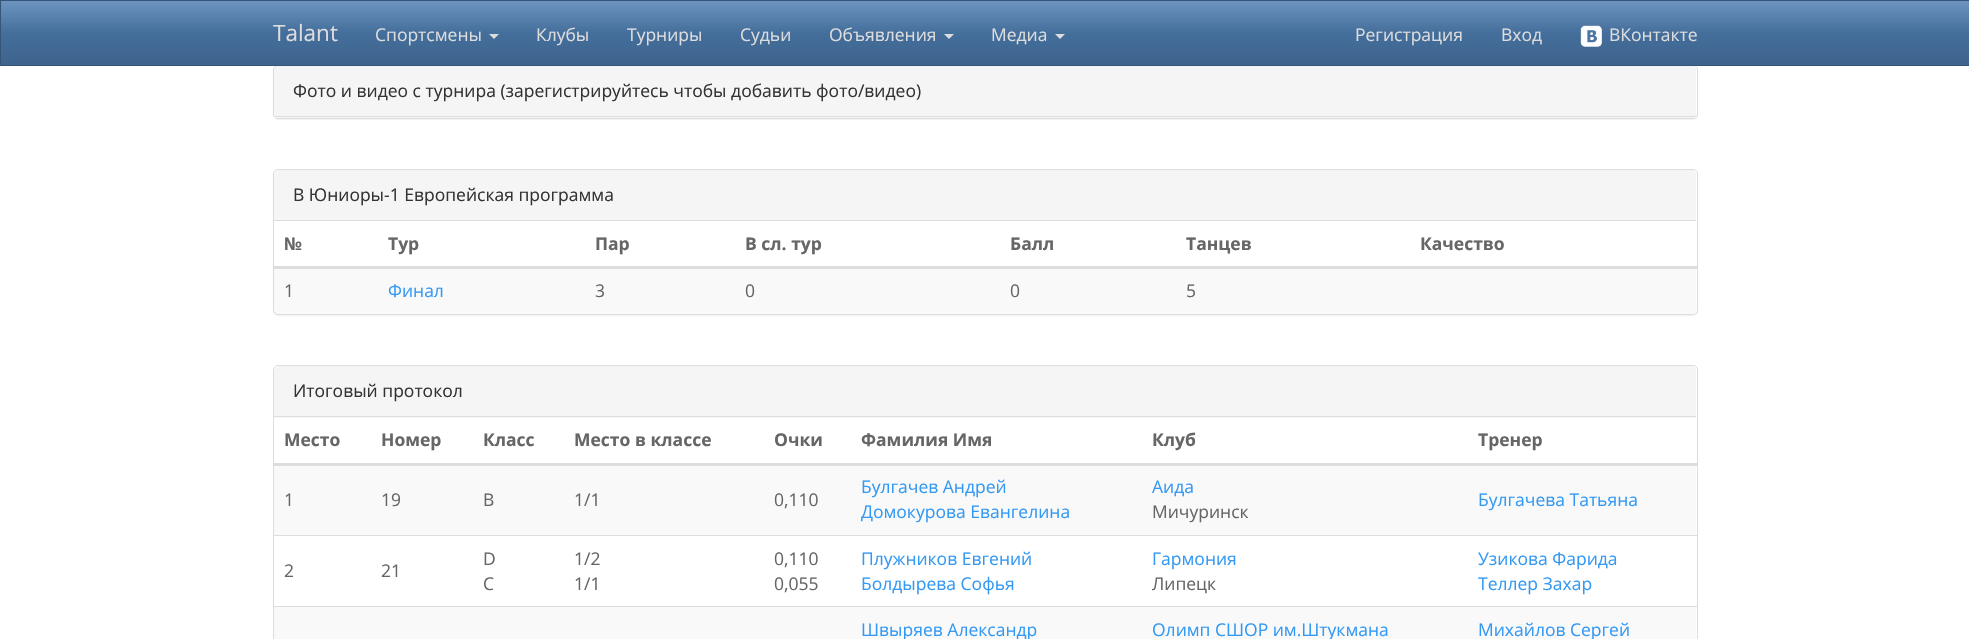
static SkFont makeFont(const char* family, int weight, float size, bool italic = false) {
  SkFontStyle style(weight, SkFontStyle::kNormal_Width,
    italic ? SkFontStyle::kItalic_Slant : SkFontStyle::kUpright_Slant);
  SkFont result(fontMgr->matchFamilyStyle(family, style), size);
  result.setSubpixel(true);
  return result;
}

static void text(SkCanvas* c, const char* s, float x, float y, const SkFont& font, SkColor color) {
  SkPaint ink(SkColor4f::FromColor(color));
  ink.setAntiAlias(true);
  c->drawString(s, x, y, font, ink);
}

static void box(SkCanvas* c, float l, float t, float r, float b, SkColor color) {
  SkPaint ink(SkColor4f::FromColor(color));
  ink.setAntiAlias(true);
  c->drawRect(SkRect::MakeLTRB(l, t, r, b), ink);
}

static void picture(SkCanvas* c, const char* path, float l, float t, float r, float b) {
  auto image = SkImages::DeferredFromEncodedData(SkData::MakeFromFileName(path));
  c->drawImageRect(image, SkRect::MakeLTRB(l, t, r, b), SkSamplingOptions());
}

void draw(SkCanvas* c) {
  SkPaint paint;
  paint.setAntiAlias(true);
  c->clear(0xffffffff);
  paint.setColor(0x0d000000);
  paint.setMaskFilter(SkMaskFilter::MakeBlur(kNormal_SkBlurStyle, 0.5f));
  c->drawRoundRect(SkRect::MakeLTRB(273, 66, 1698, 120), 5, 5, paint);
  paint.setMaskFilter(nullptr);
  {
    const SkColor colors[] = {0xff6d94bf, 0xff446e9b, 0xff3e648d};
    const float stops[] = {0, 0.5f, 1};
    const SkPoint ends[] = {{985, 1.2f}, {985, 65}};
    paint.setShader(SkGradientShader::MakeLinear(ends, colors, stops, 3, SkTileMode::kClamp));
    paint.setAlpha(255);
  }
  c->drawRect(SkRect::MakeLTRB(1, 1, 1969, 65), paint);
  paint.setShader(nullptr);
  paint.setColor(0xffffffff);
  c->drawRoundRect(SkRect::MakeLTRB(273.5f, 65.5f, 1697.5f, 118.5f), 4.5f, 4.5f, paint);
  paint.setStyle(SkPaint::kStroke_Style);
  paint.setStrokeWidth(1);
  paint.setColor(0xffdddddd);
  c->drawRoundRect(SkRect::MakeLTRB(273.5f, 65.5f, 1697.5f, 118.5f), 4.5f, 4.5f, paint);
  paint.setColor(0xff345578);
  c->drawRect(SkRect::MakeLTRB(0.5f, 0.5f, 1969.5f, 65.5f), paint);
  SkFont face1 = makeFont("Open Sans", 400, 22.5f);
  text(c, "Talant", 273, 41, face1, 0xffdddddd);
  SkFont face2 = makeFont("Open Sans", 400, 17.5f);
  text(c, "Спортсмены", 375, 41, face2, 0xffdddddd);
  paint.setStyle(SkPaint::kFill_Style);
  paint.setColor(0xffdddddd);
  c->drawPath(SkPathBuilder().moveTo(489, 34).lineTo(499, 34).lineTo(494, 39).close().detach(), paint);
  text(c, "Клубы", 536, 41, face2, 0xffdddddd);
  text(c, "Турниры", 627, 41, face2, 0xffdddddd);
  text(c, "Судьи", 740, 41, face2, 0xffdddddd);
  text(c, "Объявления", 829, 41, face2, 0xffdddddd);
  c->drawPath(SkPathBuilder().moveTo(944, 34).lineTo(954, 34).lineTo(949, 39).close().detach(), paint);
  text(c, "Медиа", 991, 41, face2, 0xffdddddd);
  c->drawPath(SkPathBuilder().moveTo(1055, 34).lineTo(1065, 34).lineTo(1060, 39).close().detach(), paint);
  text(c, "Регистрация", 1355, 41, face2, 0xffdddddd);
  text(c, "Вход", 1501, 41, face2, 0xffdddddd);
  picture(c, "img_01.png", 1580, 25, 1602, 47);
  text(c, "ВКонтакте", 1609, 41, face2, 0xffdddddd);
  paint.setColor(0xfff5f5f5);
  c->drawPath(SkPathBuilder().moveTo(278, 66).lineTo(1692, 66).cubicTo(1694, 66, 1696, 68, 1696, 70).lineTo(1696, 118).lineTo(274, 118).lineTo(274, 70).cubicTo(274, 68, 276, 66, 278, 66).close().detach(), paint);
  box(c, 274, 116, 1696, 117, 0xffdddddd);
  text(c, "Фото и видео с турнира (зарегистрируйтесь чтобы добавить фото/видео)", 293, 97, face2, 0xff333333);
  paint.setColor(0x0d000000);
  paint.setMaskFilter(SkMaskFilter::MakeBlur(kNormal_SkBlurStyle, 0.5f));
  c->drawRoundRect(SkRect::MakeLTRB(273, 170, 1698, 316), 5, 5, paint);
  paint.setMaskFilter(nullptr);
  paint.setColor(0xffffffff);
  c->drawRoundRect(SkRect::MakeLTRB(273.5f, 169.5f, 1697.5f, 314.5f), 4.5f, 4.5f, paint);
  paint.setStyle(SkPaint::kStroke_Style);
  paint.setColor(0xffdddddd);
  c->drawRoundRect(SkRect::MakeLTRB(273.5f, 169.5f, 1697.5f, 314.5f), 4.5f, 4.5f, paint);
  paint.setStyle(SkPaint::kFill_Style);
  paint.setColor(0xfff5f5f5);
  c->drawPath(SkPathBuilder().moveTo(278, 170).lineTo(1692, 170).cubicTo(1694, 170, 1696, 172, 1696, 174).lineTo(1696, 221).lineTo(274, 221).lineTo(274, 174).cubicTo(274, 172, 276, 170, 278, 170).close().detach(), paint);
  box(c, 274, 220, 1696, 221, 0xffdddddd);
  text(c, "B Юниоры-1 Европейская программа", 293, 201, face2, 0xff333333);
  SkFont face3 = makeFont("Open Sans", 700, 17.5f);
  text(c, "№", 284, 250, face3, 0xff666666);
  text(c, "Тур", 388, 250, face3, 0xff666666);
  text(c, "Пар", 595, 250, face3, 0xff666666);
  text(c, "В сл. тур", 745, 250, face3, 0xff666666);
  text(c, "Балл", 1010, 250, face3, 0xff666666);
  text(c, "Танцев", 1186, 250, face3, 0xff666666);
  paint.setColor(0xfff9f9f9);
  c->drawPath(SkPathBuilder().moveTo(274, 268).lineTo(1696, 268).lineTo(1696, 310).cubicTo(1696, 312, 1694, 314, 1692, 314).lineTo(278, 314).cubicTo(276, 314, 274, 312, 274, 310).close().detach(), paint);
  box(c, 273, 266, 1698, 269, 0xffdddddd);
  text(c, "Качество", 1420, 250, face3, 0xff666666);
  text(c, "1", 284, 297, face2, 0xff666666);
  text(c, "Финал", 388, 297, face2, 0xff3399f3);
  text(c, "3", 595, 297, face2, 0xff666666);
  text(c, "0", 745, 297, face2, 0xff666666);
  text(c, "0", 1010, 297, face2, 0xff666666);
  text(c, "5", 1186, 297, face2, 0xff666666);
  paint.setStyle(SkPaint::kStroke_Style);
  paint.setColor(0xffdddddd);
  c->drawRoundRect(SkRect::MakeLTRB(273.5f, 365.5f, 1697.5f, 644.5f), 4.5f, 4.5f, paint);
  paint.setStyle(SkPaint::kFill_Style);
  paint.setColor(0xfff5f5f5);
  c->drawPath(SkPathBuilder().moveTo(278, 366).lineTo(1692, 366).cubicTo(1694, 366, 1696, 368, 1696, 370).lineTo(1696, 418).lineTo(274, 418).lineTo(274, 370).cubicTo(274, 368, 276, 366, 278, 366).close().detach(), paint);
  box(c, 274, 416, 1696, 417, 0xffdddddd);
  text(c, "Итоговый протокол", 293, 397, face2, 0xff333333);
  text(c, "Место", 284, 446, face3, 0xff666666);
  text(c, "Номер", 381, 446, face3, 0xff666666);
  text(c, "Класс", 483, 446, face3, 0xff666666);
  text(c, "Место в классе", 574, 446, face3, 0xff666666);
  text(c, "Очки", 774, 446, face3, 0xff666666);
  text(c, "Фамилия Имя", 861, 446, face3, 0xff666666);
  text(c, "Клуб", 1152, 446, face3, 0xff666666);
  box(c, 273, 463, 1698, 466, 0xffdddddd);
  text(c, "Тренер", 1478, 446, face3, 0xff666666);
  box(c, 274, 466, 1696, 535, 0xfff9f9f9);
  text(c, "1", 284, 506, face2, 0xff666666);
  text(c, "19", 381, 506, face2, 0xff666666);
  text(c, "B", 483, 506, face2, 0xff666666);
  text(c, "1/1", 574, 506, face2, 0xff666666);
  text(c, "0,110", 774, 506, face2, 0xff666666);
  text(c, "Булгачев Андрей", 861, 493, face2, 0xff3399f3);
  text(c, "Домокурова Евангелина", 861, 518, face2, 0xff3399f3);
  text(c, "Аида", 1152, 493, face2, 0xff3399f3);
  text(c, "Мичуринск", 1152, 518, face2, 0xff666666);
  text(c, "Булгачева Татьяна", 1478, 506, face2, 0xff3399f3);
  text(c, "2", 284, 577, face2, 0xff666666);
  text(c, "21", 381, 577, face2, 0xff666666);
  text(c, "D", 483, 565, face2, 0xff666666);
  text(c, "C", 483, 590, face2, 0xff666666);
  text(c, "1/2", 574, 565, face2, 0xff666666);
  text(c, "1/1", 574, 590, face2, 0xff666666);
  text(c, "0,110", 774, 565, face2, 0xff666666);
  text(c, "0,055", 774, 590, face2, 0xff666666);
  text(c, "Плужников Евгений", 861, 565, face2, 0xff3399f3);
  text(c, "Болдырева Софья", 861, 590, face2, 0xff3399f3);
  text(c, "Гармония", 1152, 565, face2, 0xff3399f3);
  text(c, "Липецк", 1152, 590, face2, 0xff666666);
  box(c, 274, 535, 1698, 536, 0xffdddddd);
  text(c, "Узикова Фарида", 1478, 565, face2, 0xff3399f3);
  text(c, "Теллер Захар", 1478, 590, face2, 0xff3399f3);
  box(c, 274, 607, 1696, 639, 0xfff9f9f9);
  text(c, "Швыряев Александр", 861, 636, face2, 0xff3399f3);
  text(c, "Олимп СШОР им.Штукмана", 1152, 636, face2, 0xff3399f3);
  box(c, 274, 606, 1698, 607, 0xffdddddd);
  text(c, "Михайлов Сергей", 1478, 636, face2, 0xff3399f3);
}
